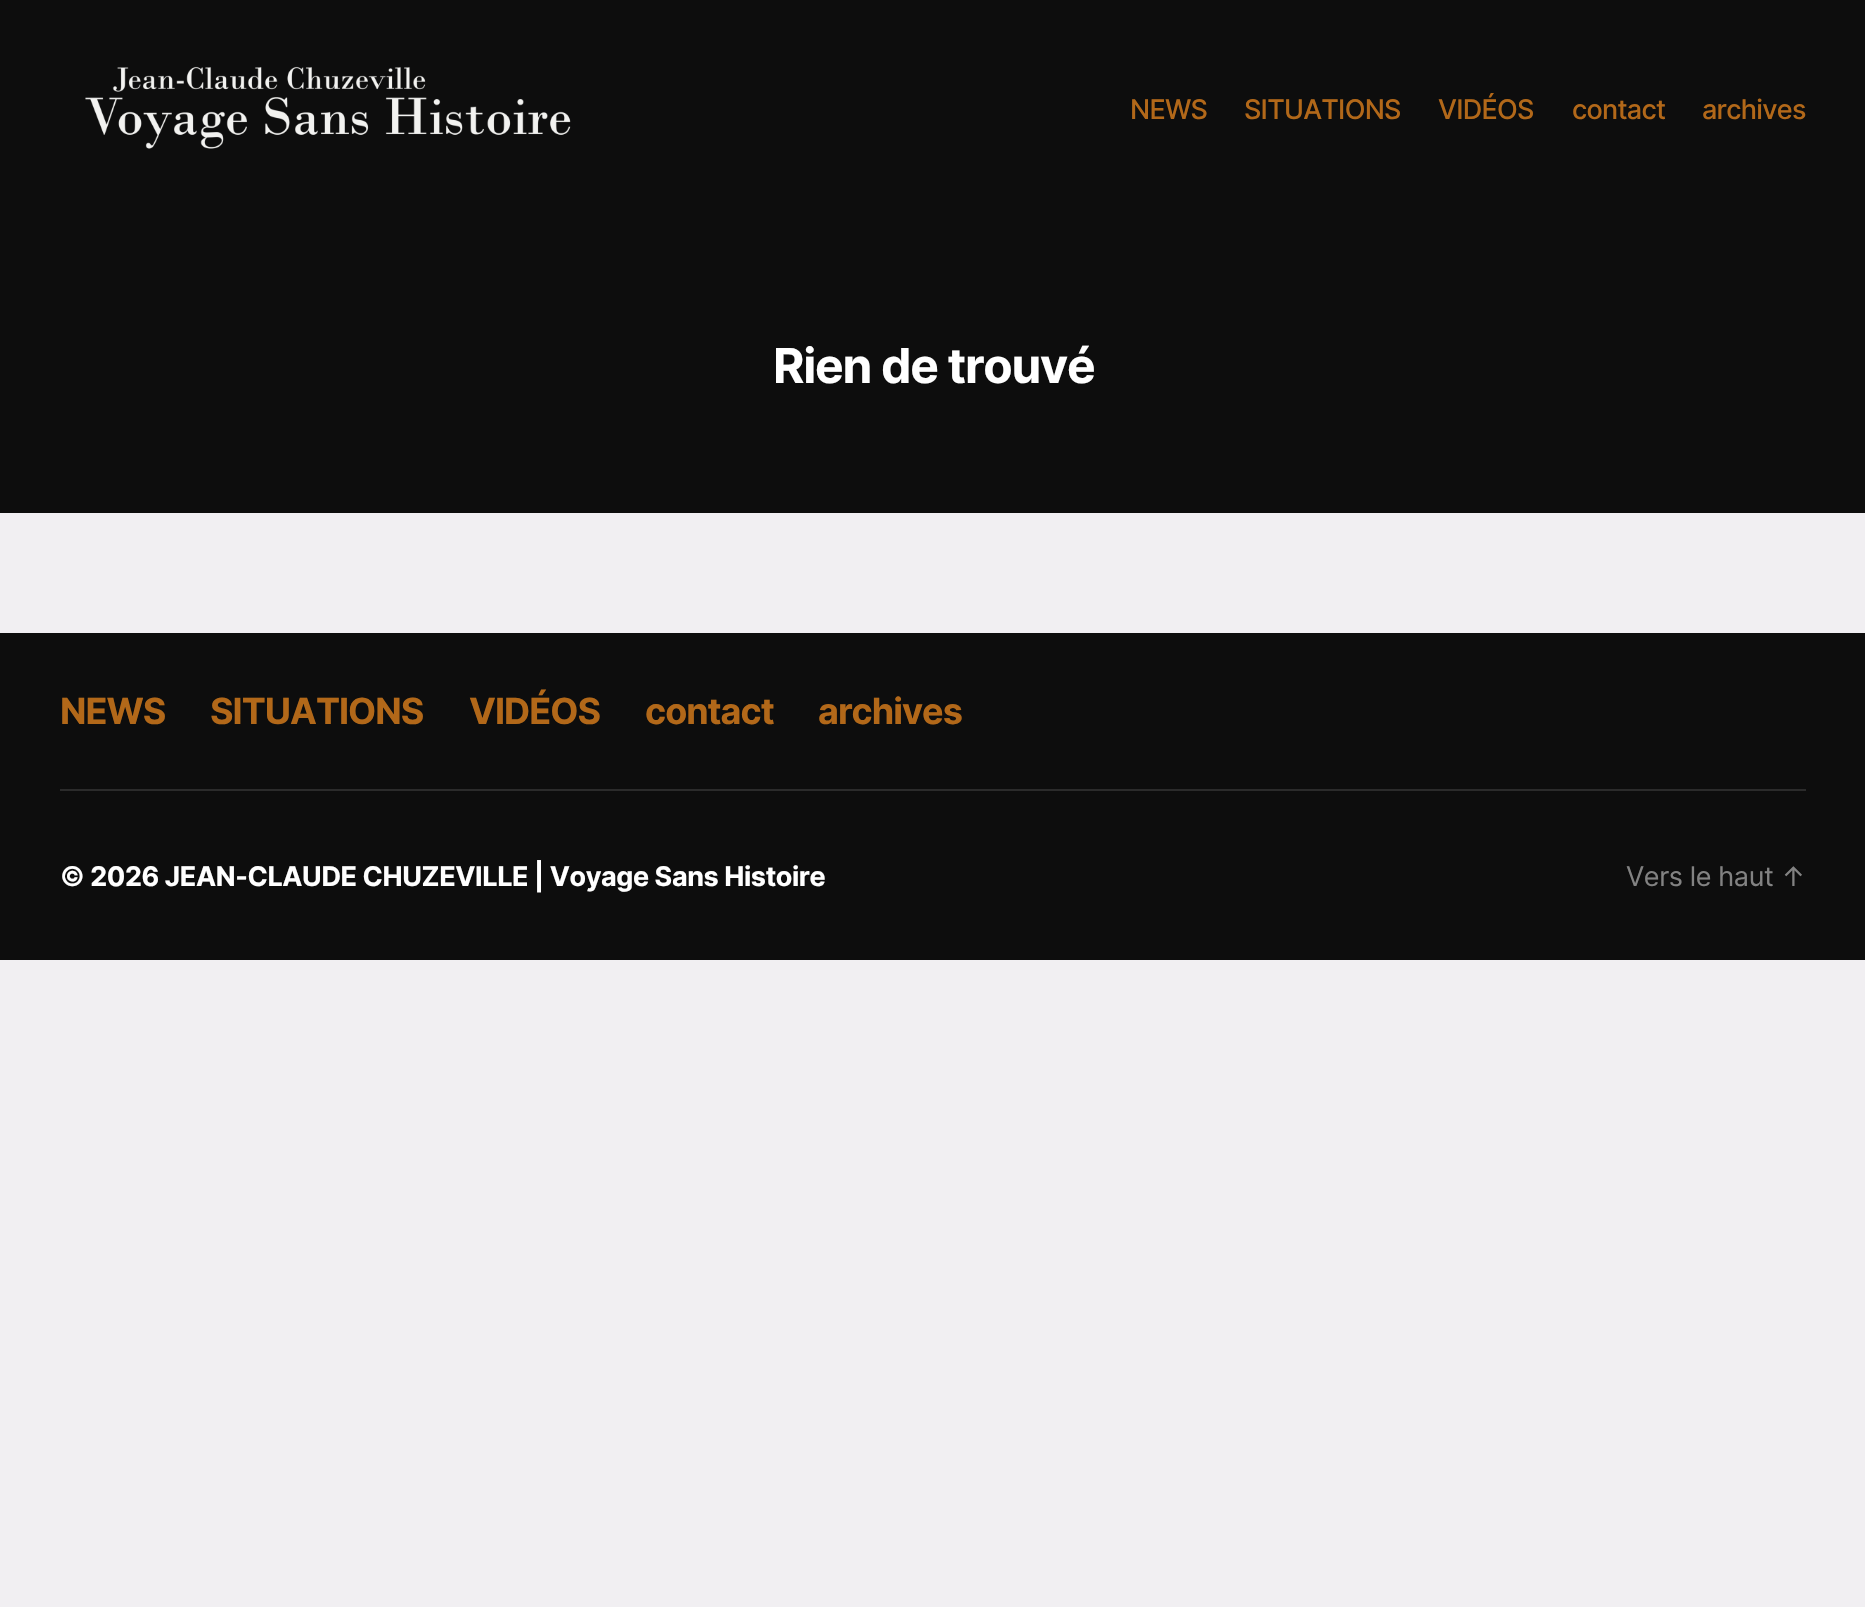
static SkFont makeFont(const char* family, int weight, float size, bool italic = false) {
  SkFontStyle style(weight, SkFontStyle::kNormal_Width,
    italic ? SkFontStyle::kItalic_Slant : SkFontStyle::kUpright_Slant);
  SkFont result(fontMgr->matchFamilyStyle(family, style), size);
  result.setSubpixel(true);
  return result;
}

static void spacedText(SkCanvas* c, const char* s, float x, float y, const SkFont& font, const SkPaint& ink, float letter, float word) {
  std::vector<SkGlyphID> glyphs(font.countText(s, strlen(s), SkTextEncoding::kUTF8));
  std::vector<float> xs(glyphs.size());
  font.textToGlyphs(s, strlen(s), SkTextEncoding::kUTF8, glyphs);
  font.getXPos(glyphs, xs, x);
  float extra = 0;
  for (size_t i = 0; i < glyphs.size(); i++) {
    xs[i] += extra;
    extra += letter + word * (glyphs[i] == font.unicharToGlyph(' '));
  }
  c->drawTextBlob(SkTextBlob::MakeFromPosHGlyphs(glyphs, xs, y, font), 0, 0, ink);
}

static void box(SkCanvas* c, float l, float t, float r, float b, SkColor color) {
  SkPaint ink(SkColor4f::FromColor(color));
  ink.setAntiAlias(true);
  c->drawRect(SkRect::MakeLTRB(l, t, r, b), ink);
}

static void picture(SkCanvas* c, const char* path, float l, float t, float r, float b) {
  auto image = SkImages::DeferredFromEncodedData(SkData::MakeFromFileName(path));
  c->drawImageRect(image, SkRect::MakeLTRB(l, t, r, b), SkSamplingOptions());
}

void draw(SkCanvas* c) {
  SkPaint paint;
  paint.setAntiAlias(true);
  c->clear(0xfff1eff2);
  box(c, 0, 0, 1865, 513, 0xff0d0d0d);
  picture(c, "img_01.png", 85, 66, 571, 149);
  SkFont face1 = makeFont("Inter", 500, 27);
  paint.setColor(0xffb26819);
  spacedText(c, "NEWS", 1130, 119, face1, paint, -0.75f, 0);
  spacedText(c, "SITUATIONS", 1244, 119, face1, paint, -0.75f, 0);
  spacedText(c, "VIDÉOS", 1438, 119, face1, paint, -0.75f, 0);
  spacedText(c, "contact", 1572, 119, face1, paint, -0.75f, 0);
  spacedText(c, "archives", 1702, 119, face1, paint, -0.75f, 0);
  SkFont face2 = makeFont("Inter", 700, 48);
  paint.setColor(0xffffffff);
  spacedText(c, "Rien de trouvé", 773, 383, face2, paint, -1.25f, 0);
  box(c, 0, 633, 1865, 960, 0xff0d0d0d);
  box(c, 60, 789, 1806, 791, 0xff2b2b2b);
  SkFont face3 = makeFont("Inter", 700, 36);
  paint.setColor(0xffb26819);
  spacedText(c, "NEWS", 60, 724, face3, paint, -1, 0);
  spacedText(c, "SITUATIONS", 210, 724, face3, paint, -1, 0);
  spacedText(c, "VIDÉOS", 469, 724, face3, paint, -1, 0);
  spacedText(c, "contact", 645, 724, face3, paint, -1, 0);
  spacedText(c, "archives", 818, 724, face3, paint, -1, 0);
  SkFont face4 = makeFont("Inter", 700, 27);
  paint.setColor(0xffffffff);
  spacedText(c, "© 2026 JEAN-CLAUDE CHUZEVILLE | Voyage Sans Histoire", 60, 886, face4, paint, -0.4f, 0);
  SkFont face5 = makeFont("Inter", 400, 27);
  paint.setColor(0xff828282);
  spacedText(c, "Vers le haut ↑", 1626, 886, face5, paint, -0.4f, 0);
}
